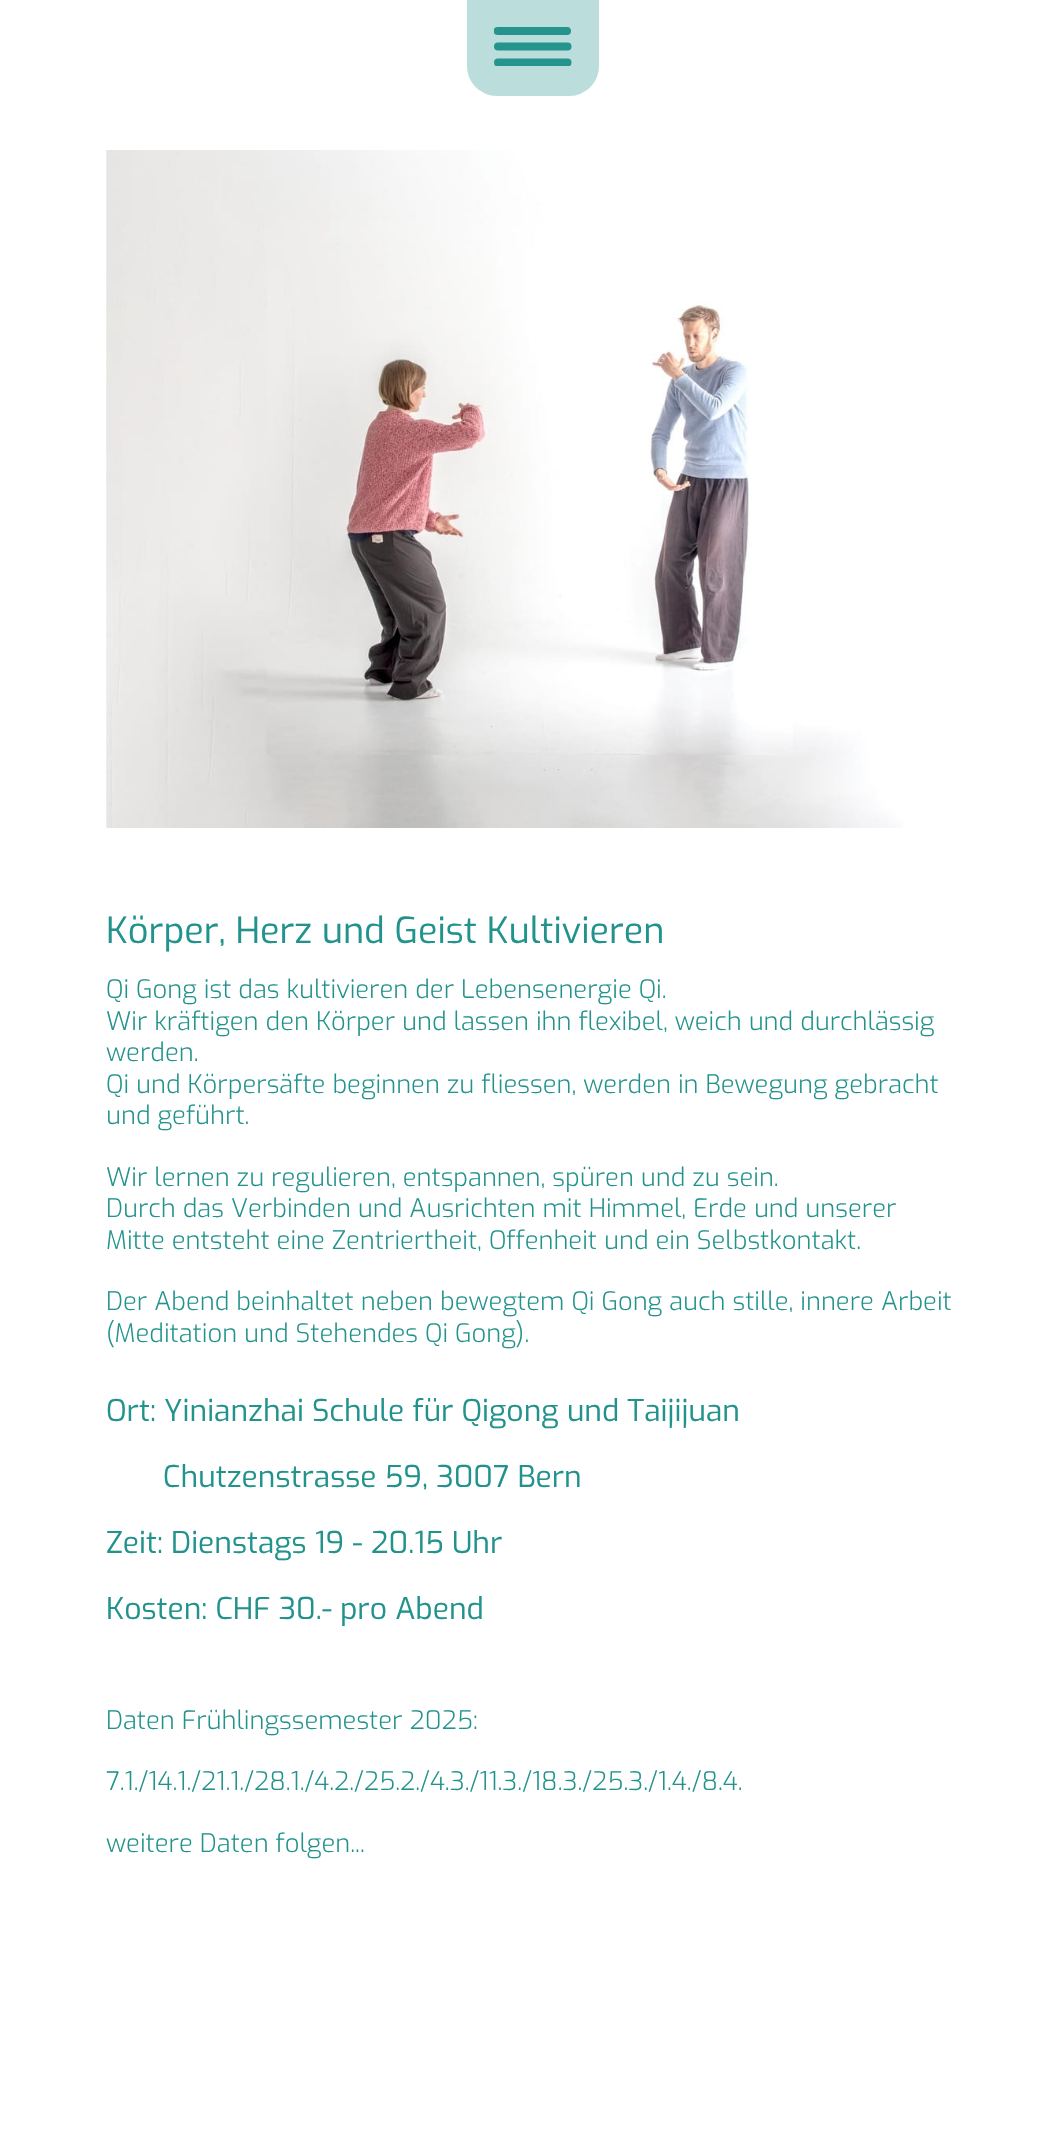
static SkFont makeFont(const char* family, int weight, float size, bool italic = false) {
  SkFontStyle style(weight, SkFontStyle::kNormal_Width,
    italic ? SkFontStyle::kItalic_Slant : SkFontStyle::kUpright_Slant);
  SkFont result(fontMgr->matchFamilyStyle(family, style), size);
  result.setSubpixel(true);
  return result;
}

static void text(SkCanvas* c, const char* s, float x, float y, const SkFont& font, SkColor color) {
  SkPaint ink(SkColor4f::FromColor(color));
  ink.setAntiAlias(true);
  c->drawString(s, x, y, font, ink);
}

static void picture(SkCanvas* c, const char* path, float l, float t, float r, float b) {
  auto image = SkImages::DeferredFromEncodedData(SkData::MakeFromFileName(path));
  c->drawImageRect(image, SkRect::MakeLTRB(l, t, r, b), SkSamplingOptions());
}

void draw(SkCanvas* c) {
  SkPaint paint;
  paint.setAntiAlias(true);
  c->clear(0xffffffff);
  paint.setColor(0xffbbdedc);
  c->drawPath(SkPathBuilder().moveTo(467, 0).lineTo(599, 0).lineTo(599, 66).cubicTo(599, 82.5f, 585.5f, 96, 569, 96).lineTo(497, 96).cubicTo(480.5f, 96, 467, 82.5f, 467, 66).close().detach(), paint);
  c->save();
  c->clipRect(SkRect::MakeLTRB(494, 27, 572, 66));
  paint.setStyle(SkPaint::kStroke_Style);
  paint.setStrokeWidth(8);
  paint.setStrokeCap(SkPaint::kRound_Cap);
  paint.setColor(0xff24948d);
  c->drawPath(SkPathBuilder().moveTo(497.5f, 31).lineTo(567, 31).detach(), paint);
  c->restore();
  c->drawPath(SkPathBuilder().moveTo(498, 46.5f).lineTo(567.5f, 46.5f).detach(), paint);
  c->save();
  c->clipRect(SkRect::MakeLTRB(494, 27, 572, 66));
  c->drawPath(SkPathBuilder().moveTo(498, 62.5f).lineTo(567.5f, 62.5f).detach(), paint);
  c->restore();
  picture(c, "img_01.png", 106, 150, 903, 828);
  picture(c, "img_02.png", 106, 150, 793, 826);
  SkFont face1 = makeFont("Exo", 400, 36);
  text(c, "Körper, Herz und Geist Kultivieren", 106, 943, face1, 0xff22938c);
  SkFont face2 = makeFont("Exo", 300, 25.5f);
  text(c, "Qi Gong ist das kultivieren der Lebensenergie Qi.", 106, 998, face2, 0xff22938c);
  text(c, "Wir kräftigen den Körper und lassen ihn flexibel, weich und durchlässig", 106, 1030, face2, 0xff22938c);
  text(c, "werden.", 106, 1061, face2, 0xff22938c);
  text(c, "Qi und Körpersäfte beginnen zu fliessen, werden in Bewegung gebracht", 106, 1093, face2, 0xff22938c);
  text(c, "und geführt.", 106, 1124, face2, 0xff22938c);
  text(c, "Wir lernen zu regulieren, entspannen, spüren und zu sein.", 106, 1186, face2, 0xff22938c);
  text(c, "Durch das Verbinden und Ausrichten mit Himmel, Erde und unserer", 106, 1217, face2, 0xff22938c);
  text(c, "Mitte entsteht eine Zentriertheit, Offenheit und ein Selbstkontakt.", 106, 1249, face2, 0xff22938c);
  text(c, "Der Abend beinhaltet neben bewegtem Qi Gong auch stille, innere Arbeit", 106, 1310, face2, 0xff22938c);
  text(c, "(Meditation und Stehendes Qi Gong).", 106, 1342, face2, 0xff22938c);
  SkFont face3 = makeFont("Exo", 400, 30);
  text(c, "Ort: Yinianzhai Schule für Qigong und Taijijuan", 106, 1421, face3, 0xff22938c);
  text(c, "Chutzenstrasse 59, 3007 Bern", 163, 1487, face3, 0xff22938c);
  text(c, "Zeit: Dienstags 19 - 20.15 Uhr", 106, 1553, face3, 0xff22938c);
  text(c, "Kosten: CHF 30.- pro Abend", 106, 1619, face3, 0xff22938c);
  text(c, "Daten Frühlingssemester 2025:", 106, 1729, face2, 0xff22938c);
  text(c, "7.1./14.1./21.1./28.1./4.2./25.2./4.3./11.3./18.3./25.3./1.4./8.4.", 106, 1790, face2, 0xff22938c);
  text(c, "weitere Daten folgen...", 106, 1852, face2, 0xff22938c);
}
